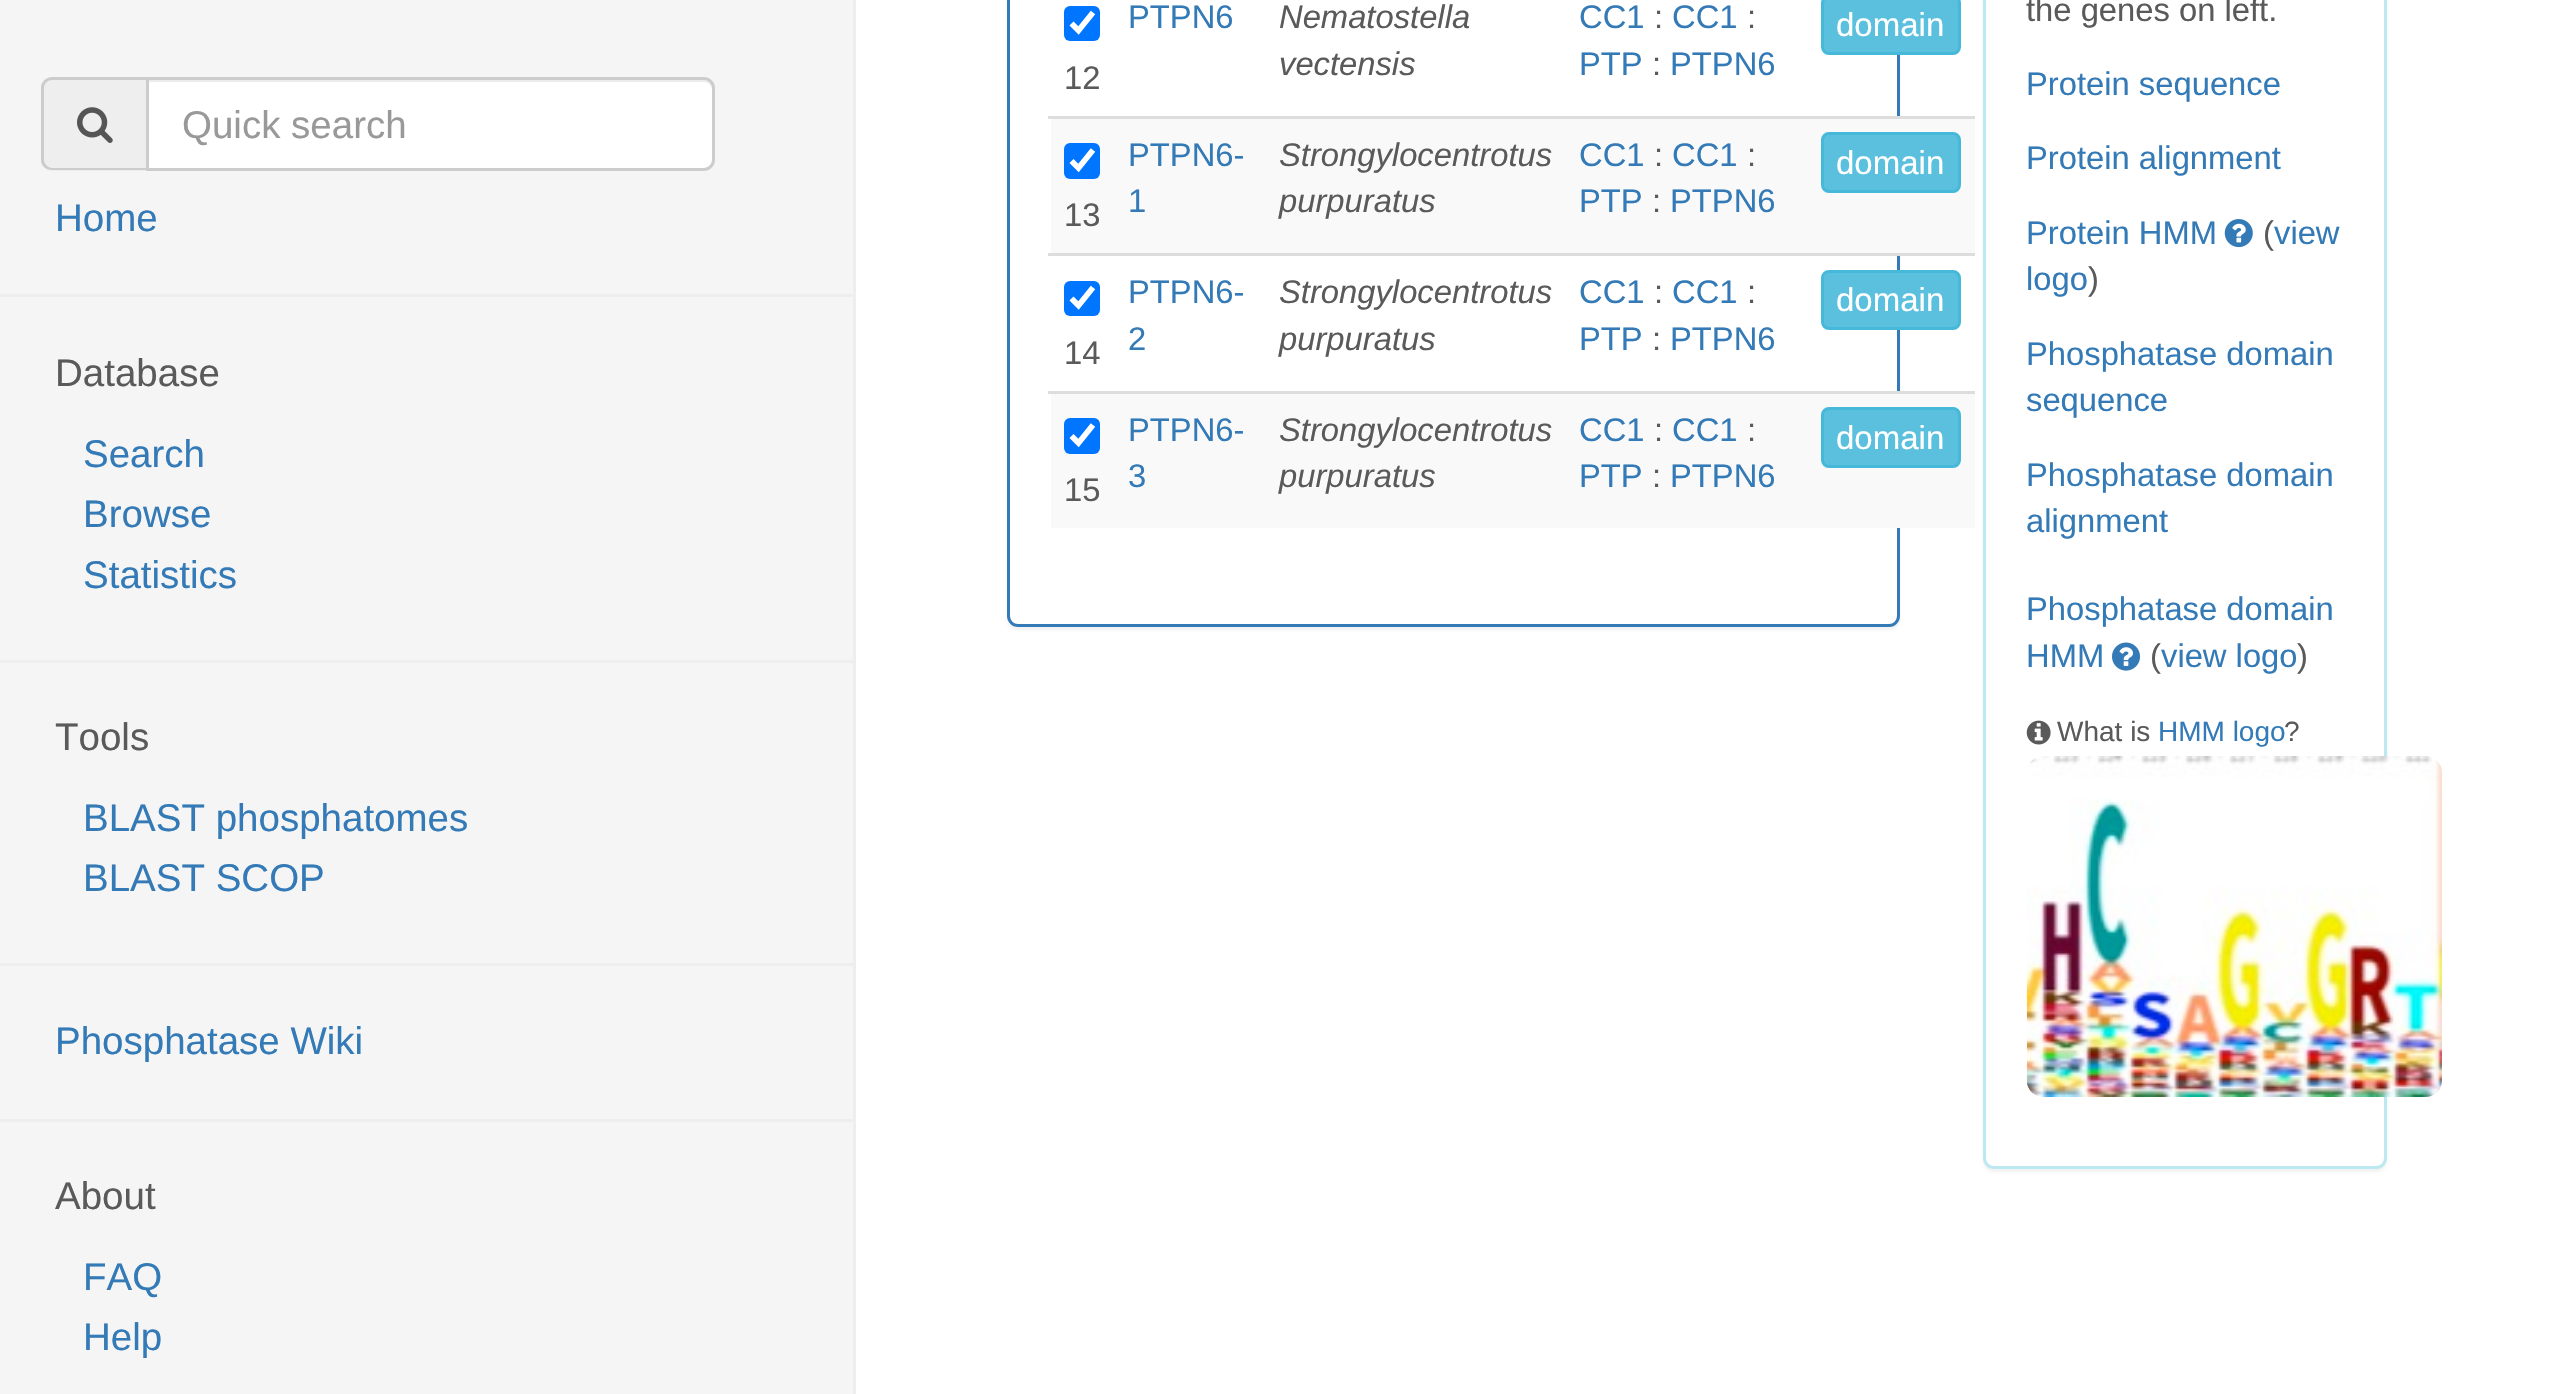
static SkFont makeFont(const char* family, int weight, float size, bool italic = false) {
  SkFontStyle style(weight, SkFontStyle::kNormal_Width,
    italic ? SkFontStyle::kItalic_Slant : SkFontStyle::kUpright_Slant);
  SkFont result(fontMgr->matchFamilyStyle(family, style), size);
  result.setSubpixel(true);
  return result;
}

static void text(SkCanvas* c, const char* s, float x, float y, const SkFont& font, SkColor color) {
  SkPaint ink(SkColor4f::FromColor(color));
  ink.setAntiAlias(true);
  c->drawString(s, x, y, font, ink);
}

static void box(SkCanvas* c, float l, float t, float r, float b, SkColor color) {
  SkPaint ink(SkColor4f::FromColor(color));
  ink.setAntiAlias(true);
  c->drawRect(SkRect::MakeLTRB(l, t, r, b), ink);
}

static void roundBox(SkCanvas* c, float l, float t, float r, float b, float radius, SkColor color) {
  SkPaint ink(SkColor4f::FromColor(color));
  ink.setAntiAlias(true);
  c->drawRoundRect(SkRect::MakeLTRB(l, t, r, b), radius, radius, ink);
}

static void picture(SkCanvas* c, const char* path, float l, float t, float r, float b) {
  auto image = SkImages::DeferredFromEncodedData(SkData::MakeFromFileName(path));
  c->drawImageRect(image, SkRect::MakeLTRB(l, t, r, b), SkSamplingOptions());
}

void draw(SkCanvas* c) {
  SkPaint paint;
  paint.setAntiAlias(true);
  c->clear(0xffffffff);
  box(c, 0, 0, 853, 1394, 0xfff5f5f5);
  box(c, 853, 0, 856, 1394, 0xffeeeeee);
  paint.setColor(0xffeeeeee);
  c->drawPath(SkPathBuilder().moveTo(52, 77).lineTo(146, 77).lineTo(146, 171).lineTo(52, 171).cubicTo(46, 171, 41, 166, 41, 160).lineTo(41, 88).cubicTo(41, 82, 46, 77, 52, 77).close().detach(), paint);
  paint.setColor(0xffcccccc);
  c->drawPath(SkPathBuilder(SkPathFillType::kEvenOdd).moveTo(52, 77).lineTo(146, 77).lineTo(146, 170).lineTo(52, 170).cubicTo(46, 170, 41, 166, 41, 160).lineTo(41, 88).cubicTo(41, 82, 46, 77, 52, 77).close().moveTo(52, 80).lineTo(146, 80).lineTo(146, 168).lineTo(52, 168).cubicTo(48, 168, 44, 164, 44, 160).lineTo(44, 88).cubicTo(44, 83, 48, 80, 52, 80).close().detach(), paint);
  picture(c, "img_01.png", 77, 107, 113, 143);
  paint.setColor(0xffffffff);
  c->drawPath(SkPathBuilder().moveTo(146, 77).lineTo(704, 77).cubicTo(710, 77, 715, 82, 715, 88).lineTo(715, 160).cubicTo(715, 166, 710, 171, 704, 171).lineTo(146, 171).close().detach(), paint);
  paint.setColor(0xffececec);
  c->drawPath(SkPathBuilder().moveTo(149, 80).lineTo(149, 82).lineTo(704, 82).cubicTo(709, 82, 712, 86, 712, 91).cubicTo(712, 86, 710, 80, 704, 80).close().detach(), paint);
  paint.setStyle(SkPaint::kStroke_Style);
  paint.setStrokeWidth(3);
  paint.setColor(0xffcccccc);
  c->drawPath(SkPathBuilder().moveTo(147.5f, 78.5f).lineTo(704, 78.5f).cubicTo(709, 78.5f, 713.5f, 83, 713.5f, 88).lineTo(713.5f, 160).cubicTo(713.5f, 165, 709, 169.5f, 704, 169.5f).lineTo(147.5f, 169.5f).close().detach(), paint);
  SkFont face1 = makeFont("Liberation Sans", 400, 38.5f);
  text(c, "Quick search", 182, 138, face1, 0xff999999);
  text(c, "Home", 55, 231, face1, 0xff337ab7);
  box(c, 0, 294, 853, 297, 0xffeeeeee);
  text(c, "Database", 55, 386, face1, 0xff5a5a5a);
  text(c, "Search", 83, 467, face1, 0xff337ab7);
  text(c, "Browse", 83, 527, face1, 0xff337ab7);
  text(c, "Statistics", 83, 588, face1, 0xff337ab7);
  box(c, 0, 660, 853, 663, 0xffeeeeee);
  text(c, "Tools", 55, 750, face1, 0xff5a5a5a);
  text(c, "BLAST phosphatomes", 83, 831, face1, 0xff337ab7);
  text(c, "BLAST SCOP", 83, 891, face1, 0xff337ab7);
  box(c, 0, 963, 853, 966, 0xffeeeeee);
  text(c, "Phosphatase Wiki", 55, 1054, face1, 0xff337ab7);
  box(c, 0, 1119, 853, 1122, 0xffeeeeee);
  text(c, "About", 55, 1209, face1, 0xff5a5a5a);
  text(c, "FAQ", 83, 1290, face1, 0xff337ab7);
  text(c, "Help", 83, 1350, face1, 0xff337ab7);
  paint.setStyle(SkPaint::kFill_Style);
  paint.setColor(0x0d000000);
  paint.setMaskFilter(SkMaskFilter::MakeBlur(kNormal_SkBlurStyle, 1.5f));
  c->drawRoundRect(SkRect::MakeLTRB(1007, -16, 1900, 630), 11, 11, paint);
  paint.setMaskFilter(nullptr);
  paint.setColor(0xffffffff);
  c->drawRoundRect(SkRect::MakeLTRB(1008.5f, -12.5f, 1898.5f, 625.5f), 9.5f, 9.5f, paint);
  paint.setStyle(SkPaint::kStroke_Style);
  paint.setColor(0xff337ab7);
  c->drawRoundRect(SkRect::MakeLTRB(1008.5f, -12.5f, 1898.5f, 625.5f), 9.5f, 9.5f, paint);
  SkFont face2 = makeFont("Liberation Sans", 400, 32.75f);
  text(c, "PTPN6", 1128, 28, face2, 0xff337ab7);
  SkFont face3 = makeFont("Liberation Sans", 400, 32.75f, true);
  text(c, "Nematostella", 1279, 28, face3, 0xff5a5a5a);
  text(c, "vectensis", 1279, 75, face3, 0xff5a5a5a);
  text(c, "CC1", 1579, 28, face2, 0xff337ab7);
  text(c, ":", 1654, 28, face2, 0xff5a5a5a);
  text(c, "CC1", 1672, 28, face2, 0xff337ab7);
  text(c, ":", 1747, 28, face2, 0xff5a5a5a);
  text(c, "PTP", 1579, 75, face2, 0xff337ab7);
  text(c, ":", 1652, 75, face2, 0xff5a5a5a);
  text(c, "PTPN6", 1670, 75, face2, 0xff337ab7);
  paint.setStyle(SkPaint::kFill_Style);
  paint.setColor(0xff5bc0de);
  c->drawRoundRect(SkRect::MakeLTRB(1822.5f, -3.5f, 1959.5f, 53.5f), 6.5f, 6.5f, paint);
  paint.setStyle(SkPaint::kStroke_Style);
  paint.setColor(0xff46b8da);
  c->drawRoundRect(SkRect::MakeLTRB(1822.5f, -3.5f, 1959.5f, 53.5f), 6.5f, 6.5f, paint);
  SkFont face4 = makeFont("Liberation Sans", 400, 33);
  text(c, "domain", 1836, 36, face4, 0xffffffff);
  roundBox(c, 1064, 6, 1100, 41, 6, 0xff0075ff);
  paint.setStrokeWidth(5.7f);
  paint.setColor(0xffffffff);
  c->drawPath(SkPathBuilder().moveTo(1071.5f, 23.5f).lineTo(1078.5f, 30.5f).lineTo(1093, 12.5f).detach(), paint);
  text(c, "12", 1064, 89, face2, 0xff5a5a5a);
  box(c, 1051, 119, 1975, 253, 0xfff9f9f9);
  text(c, "PTPN6-", 1128, 166, face2, 0xff337ab7);
  text(c, "1", 1128, 212, face2, 0xff337ab7);
  text(c, "Strongylocentrotus", 1279, 166, face3, 0xff5a5a5a);
  text(c, "purpuratus", 1279, 212, face3, 0xff5a5a5a);
  text(c, "CC1", 1579, 166, face2, 0xff337ab7);
  text(c, ":", 1654, 166, face2, 0xff5a5a5a);
  text(c, "CC1", 1672, 166, face2, 0xff337ab7);
  text(c, ":", 1747, 166, face2, 0xff5a5a5a);
  text(c, "PTP", 1579, 212, face2, 0xff337ab7);
  text(c, ":", 1652, 212, face2, 0xff5a5a5a);
  text(c, "PTPN6", 1670, 212, face2, 0xff337ab7);
  box(c, 1048, 116, 1975, 119, 0xffdddddd);
  paint.setStyle(SkPaint::kFill_Style);
  paint.setColor(0xff5bc0de);
  c->drawRoundRect(SkRect::MakeLTRB(1822.5f, 133.5f, 1959.5f, 191.5f), 6.5f, 6.5f, paint);
  paint.setStyle(SkPaint::kStroke_Style);
  paint.setStrokeWidth(3);
  paint.setColor(0xff46b8da);
  c->drawRoundRect(SkRect::MakeLTRB(1822.5f, 133.5f, 1959.5f, 191.5f), 6.5f, 6.5f, paint);
  text(c, "domain", 1836, 174, face4, 0xffffffff);
  roundBox(c, 1064, 143, 1100, 179, 6, 0xff0075ff);
  paint.setStrokeWidth(5.7f);
  paint.setColor(0xffffffff);
  c->drawPath(SkPathBuilder().moveTo(1071.5f, 161).lineTo(1078.5f, 168).lineTo(1093, 150).detach(), paint);
  text(c, "13", 1064, 226, face2, 0xff5a5a5a);
  text(c, "PTPN6-", 1128, 303, face2, 0xff337ab7);
  text(c, "2", 1128, 350, face2, 0xff337ab7);
  text(c, "Strongylocentrotus", 1279, 303, face3, 0xff5a5a5a);
  text(c, "purpuratus", 1279, 350, face3, 0xff5a5a5a);
  text(c, "CC1", 1579, 303, face2, 0xff337ab7);
  text(c, ":", 1654, 303, face2, 0xff5a5a5a);
  text(c, "CC1", 1672, 303, face2, 0xff337ab7);
  text(c, ":", 1747, 303, face2, 0xff5a5a5a);
  text(c, "PTP", 1579, 350, face2, 0xff337ab7);
  text(c, ":", 1652, 350, face2, 0xff5a5a5a);
  text(c, "PTPN6", 1670, 350, face2, 0xff337ab7);
  box(c, 1048, 253, 1975, 256, 0xffdddddd);
  paint.setStyle(SkPaint::kFill_Style);
  paint.setColor(0xff5bc0de);
  c->drawRoundRect(SkRect::MakeLTRB(1822.5f, 271.5f, 1959.5f, 328.5f), 6.5f, 6.5f, paint);
  paint.setStyle(SkPaint::kStroke_Style);
  paint.setStrokeWidth(3);
  paint.setColor(0xff46b8da);
  c->drawRoundRect(SkRect::MakeLTRB(1822.5f, 271.5f, 1959.5f, 328.5f), 6.5f, 6.5f, paint);
  text(c, "domain", 1836, 311, face4, 0xffffffff);
  roundBox(c, 1064, 281, 1100, 316, 6, 0xff0075ff);
  paint.setStrokeWidth(5.7f);
  paint.setColor(0xffffffff);
  c->drawPath(SkPathBuilder().moveTo(1071.5f, 298.5f).lineTo(1078.5f, 305.5f).lineTo(1093, 287.5f).detach(), paint);
  text(c, "14", 1064, 364, face2, 0xff5a5a5a);
  box(c, 1051, 394, 1975, 528, 0xfff9f9f9);
  text(c, "PTPN6-", 1128, 441, face2, 0xff337ab7);
  text(c, "3", 1128, 487, face2, 0xff337ab7);
  text(c, "Strongylocentrotus", 1279, 441, face3, 0xff5a5a5a);
  text(c, "purpuratus", 1279, 487, face3, 0xff5a5a5a);
  text(c, "CC1", 1579, 441, face2, 0xff337ab7);
  text(c, ":", 1654, 441, face2, 0xff5a5a5a);
  text(c, "CC1", 1672, 441, face2, 0xff337ab7);
  text(c, ":", 1747, 441, face2, 0xff5a5a5a);
  text(c, "PTP", 1579, 487, face2, 0xff337ab7);
  text(c, ":", 1652, 487, face2, 0xff5a5a5a);
  text(c, "PTPN6", 1670, 487, face2, 0xff337ab7);
  box(c, 1048, 391, 1975, 394, 0xffdddddd);
  paint.setStyle(SkPaint::kFill_Style);
  paint.setColor(0xff5bc0de);
  c->drawRoundRect(SkRect::MakeLTRB(1822.5f, 408.5f, 1959.5f, 466.5f), 6.5f, 6.5f, paint);
  paint.setStyle(SkPaint::kStroke_Style);
  paint.setStrokeWidth(3);
  paint.setColor(0xff46b8da);
  c->drawRoundRect(SkRect::MakeLTRB(1822.5f, 408.5f, 1959.5f, 466.5f), 6.5f, 6.5f, paint);
  text(c, "domain", 1836, 449, face4, 0xffffffff);
  roundBox(c, 1064, 418, 1100, 454, 6, 0xff0075ff);
  paint.setStrokeWidth(5.7f);
  paint.setColor(0xffffffff);
  c->drawPath(SkPathBuilder().moveTo(1071.5f, 436).lineTo(1078.5f, 443).lineTo(1093, 425).detach(), paint);
  text(c, "15", 1064, 501, face2, 0xff5a5a5a);
  paint.setStyle(SkPaint::kFill_Style);
  paint.setColor(0x0d000000);
  paint.setMaskFilter(SkMaskFilter::MakeBlur(kNormal_SkBlurStyle, 1.5f));
  c->drawRoundRect(SkRect::MakeLTRB(1983, -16, 2387, 1172), 11, 11, paint);
  paint.setMaskFilter(nullptr);
  paint.setColor(0xffffffff);
  c->drawRoundRect(SkRect::MakeLTRB(1984.5f, -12.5f, 2385.5f, 1167.5f), 9.5f, 9.5f, paint);
  paint.setStyle(SkPaint::kStroke_Style);
  paint.setStrokeWidth(3);
  paint.setColor(0xffbce8f1);
  c->drawRoundRect(SkRect::MakeLTRB(1984.5f, -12.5f, 2385.5f, 1167.5f), 9.5f, 9.5f, paint);
  text(c, "the genes on left.", 2026, 21, face2, 0xff5a5a5a);
  text(c, "Protein sequence", 2026, 95, face2, 0xff337ab7);
  text(c, "Protein alignment", 2026, 169, face2, 0xff337ab7);
  text(c, "Protein HMM", 2026, 244, face2, 0xff337ab7);
  picture(c, "img_02.png", 2224, 219, 2253, 248);
  text(c, "(", 2263, 244, face2, 0xff5a5a5a);
  text(c, "view", 2274, 244, face2, 0xff337ab7);
  text(c, "logo", 2026, 290, face2, 0xff337ab7);
  text(c, ")", 2088, 290, face2, 0xff5a5a5a);
  text(c, "Phosphatase domain", 2026, 365, face2, 0xff337ab7);
  text(c, "sequence", 2026, 411, face2, 0xff337ab7);
  text(c, "Phosphatase domain", 2026, 486, face2, 0xff337ab7);
  text(c, "alignment", 2026, 532, face2, 0xff337ab7);
  text(c, "Phosphatase domain", 2026, 620, face2, 0xff337ab7);
  text(c, "HMM", 2026, 667, face2, 0xff337ab7);
  picture(c, "img_03.png", 2112, 642, 2141, 671);
  text(c, "(", 2150, 667, face2, 0xff5a5a5a);
  text(c, "view logo", 2161, 667, face2, 0xff337ab7);
  text(c, ")", 2297, 667, face2, 0xff5a5a5a);
  picture(c, "img_04.png", 2026, 720, 2051, 745);
  SkFont face5 = makeFont("Liberation Sans", 400, 28);
  text(c, "What is", 2057, 741, face5, 0xff5a5a5a);
  text(c, "HMM logo", 2158, 741, face5, 0xff337ab7);
  text(c, "?", 2284, 741, face5, 0xff5a5a5a);
  picture(c, "img_05.png", 2026, 756, 2442, 1097);
}
